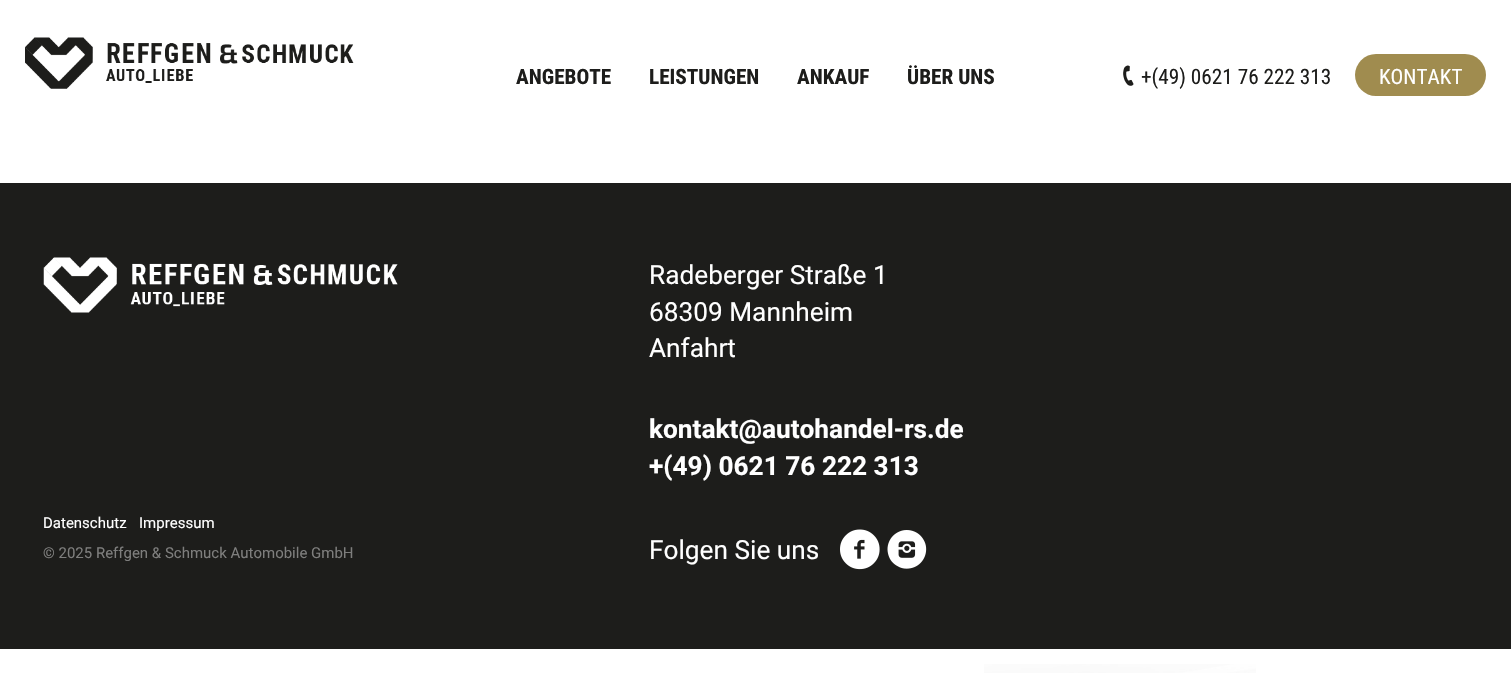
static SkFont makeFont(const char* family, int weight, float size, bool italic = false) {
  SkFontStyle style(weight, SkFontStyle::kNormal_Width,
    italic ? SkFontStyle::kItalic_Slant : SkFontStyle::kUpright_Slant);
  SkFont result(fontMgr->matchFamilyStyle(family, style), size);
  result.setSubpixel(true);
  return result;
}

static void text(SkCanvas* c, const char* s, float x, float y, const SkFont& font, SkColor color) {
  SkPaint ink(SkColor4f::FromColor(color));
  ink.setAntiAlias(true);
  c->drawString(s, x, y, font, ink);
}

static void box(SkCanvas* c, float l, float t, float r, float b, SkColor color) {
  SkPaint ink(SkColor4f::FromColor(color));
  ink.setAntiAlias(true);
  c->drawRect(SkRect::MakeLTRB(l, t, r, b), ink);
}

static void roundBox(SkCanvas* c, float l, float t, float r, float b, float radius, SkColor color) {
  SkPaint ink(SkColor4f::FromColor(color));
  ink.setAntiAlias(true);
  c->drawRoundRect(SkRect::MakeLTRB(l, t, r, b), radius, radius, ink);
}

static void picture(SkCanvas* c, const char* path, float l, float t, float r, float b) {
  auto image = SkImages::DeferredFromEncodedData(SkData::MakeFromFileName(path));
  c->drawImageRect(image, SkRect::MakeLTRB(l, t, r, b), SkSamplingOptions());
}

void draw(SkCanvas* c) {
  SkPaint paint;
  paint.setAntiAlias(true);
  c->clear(0xffffffff);
  picture(c, "img_01.png", 25, 37, 354, 89);
  SkFont face1 = makeFont("Roboto Condensed", 700, 21.25f);
  text(c, "ANGEBOTE", 516, 84, face1, 0xff1d1d1b);
  text(c, "LEISTUNGEN", 649, 84, face1, 0xff1d1d1b);
  text(c, "ANKAUF", 797, 84, face1, 0xff1d1d1b);
  text(c, "ÜBER UNS", 907, 84, face1, 0xff1d1d1b);
  picture(c, "img_02.png", 1123, 65, 1134, 86);
  SkFont face2 = makeFont("Roboto Condensed", 400, 21.25f);
  text(c, "+(49) 0621 76 222 313", 1141, 84, face2, 0xff1d1d1b);
  roundBox(c, 1355, 54, 1486, 96, 21, 0xffa08c4f);
  text(c, "KONTAKT", 1379, 84, face2, 0xffffffff);
  box(c, 0, 183, 1511, 649, 0xff1d1d1b);
  picture(c, "img_03.png", 43, 257, 398, 313);
  SkFont face3 = makeFont("Roboto", 400, 15);
  text(c, "Datenschutz", 43, 528, face3, 0xffffffff);
  text(c, "Impressum", 139, 528, face3, 0xffffffff);
  text(c, "© 2025 Reffgen & Schmuck Automobile GmbH", 43, 558, face3, 0xff7e7e7d);
  SkFont face4 = makeFont("Roboto", 400, 26.25f);
  text(c, "Radeberger Straße 1", 649, 284, face4, 0xffffffff);
  text(c, "68309 Mannheim", 649, 321, face4, 0xffffffff);
  text(c, "Anfahrt", 649, 357, face4, 0xffffffff);
  SkFont face5 = makeFont("Roboto", 700, 26.25f);
  text(c, "kontakt@autohandel-rs.de", 649, 438, face5, 0xffffffff);
  text(c, "+(49) 0621 76 222 313", 649, 475, face5, 0xffffffff);
  text(c, "Folgen Sie uns", 649, 559, face4, 0xffffffff);
  picture(c, "img_04.png", 840, 529, 880, 570);
  picture(c, "img_05.png", 887, 530, 927, 569);
  picture(c, "img_06.png", 984, 664, 1256, 673);
}
